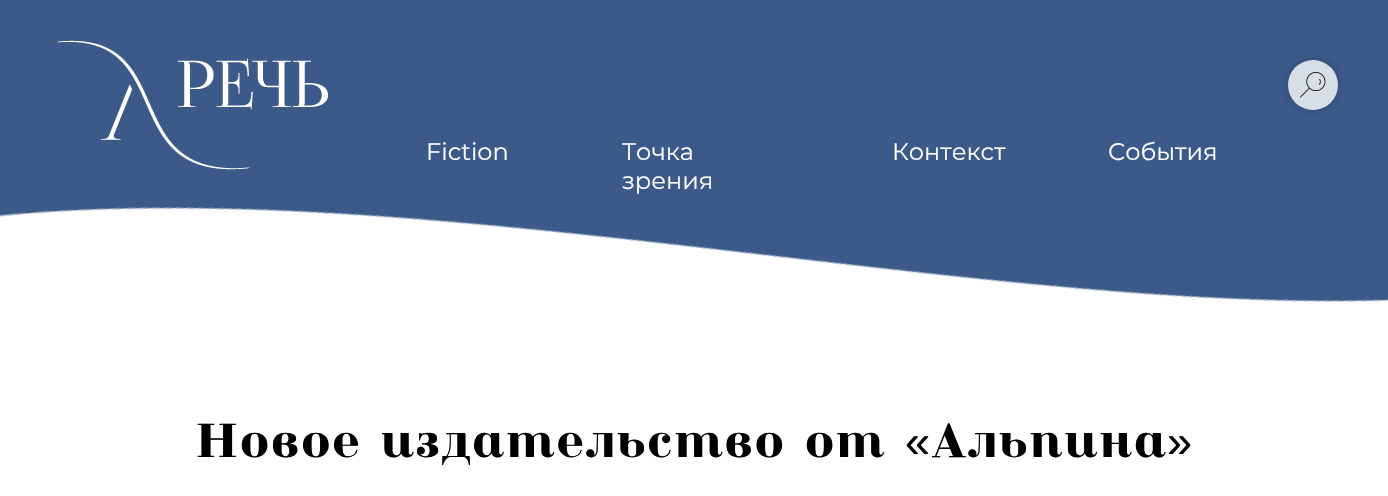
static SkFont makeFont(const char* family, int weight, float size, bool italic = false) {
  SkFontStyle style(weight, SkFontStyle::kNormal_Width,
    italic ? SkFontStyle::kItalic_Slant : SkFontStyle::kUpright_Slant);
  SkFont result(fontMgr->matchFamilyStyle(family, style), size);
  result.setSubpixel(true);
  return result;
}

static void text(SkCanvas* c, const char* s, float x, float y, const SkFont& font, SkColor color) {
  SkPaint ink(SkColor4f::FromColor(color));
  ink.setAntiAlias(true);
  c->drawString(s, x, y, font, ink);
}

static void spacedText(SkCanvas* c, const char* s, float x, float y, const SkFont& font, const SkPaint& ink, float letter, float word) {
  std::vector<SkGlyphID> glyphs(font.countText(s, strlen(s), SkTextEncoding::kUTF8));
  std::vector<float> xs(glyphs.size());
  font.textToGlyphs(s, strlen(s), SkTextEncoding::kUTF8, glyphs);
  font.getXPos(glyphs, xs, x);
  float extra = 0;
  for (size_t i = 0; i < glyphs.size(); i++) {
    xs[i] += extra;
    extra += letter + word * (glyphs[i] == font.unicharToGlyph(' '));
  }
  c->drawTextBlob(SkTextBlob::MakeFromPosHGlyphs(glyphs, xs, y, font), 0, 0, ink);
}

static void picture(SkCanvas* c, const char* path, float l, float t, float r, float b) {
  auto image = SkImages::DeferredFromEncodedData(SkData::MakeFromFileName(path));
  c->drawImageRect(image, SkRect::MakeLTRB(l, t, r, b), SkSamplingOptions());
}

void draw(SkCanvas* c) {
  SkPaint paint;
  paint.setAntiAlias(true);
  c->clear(0xffffffff);
  picture(c, "img_02.png", 0, 0, 1388, 303);
  c->save();
  c->clipPath(SkPathBuilder(SkPathFillType::kEvenOdd).moveTo(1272, 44).lineTo(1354, 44).lineTo(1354, 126).lineTo(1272, 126).close().moveTo(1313, 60).cubicTo(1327, 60, 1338, 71, 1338, 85).cubicTo(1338, 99, 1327, 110, 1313, 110).cubicTo(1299, 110, 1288, 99, 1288, 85).cubicTo(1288, 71, 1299, 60, 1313, 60).close().detach(), true);
  paint.setColor(0x33000000);
  paint.setMaskFilter(SkMaskFilter::MakeBlur(kNormal_SkBlurStyle, 5));
  c->drawRoundRect(SkRect::MakeLTRB(1288, 60, 1338, 110), 25, 25, paint);
  paint.setMaskFilter(nullptr);
  c->restore();
  paint.setColor(0xccffffff);
  c->drawCircle(1313, 85, 25, paint);
  picture(c, "img_01.png", 1300, 72, 1326, 98);
  picture(c, "img_03.png", 57, 40, 328, 170);
  SkFont face1 = makeFont("Montserrat", 400, 24);
  text(c, "Fiction", 426, 160, face1, 0xffffffff);
  text(c, "Точка", 622, 160, face1, 0xffffffff);
  text(c, "зрения", 622, 189, face1, 0xffffffff);
  text(c, "Контекст", 892, 160, face1, 0xffffffff);
  text(c, "События", 1108, 160, face1, 0xffffffff);
  SkFont face2 = makeFont("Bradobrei", 400, 45);
  paint.setColor(0xff000000);
  spacedText(c, "Новое издательство от", 195, 457, face2, paint, 1, 0);
  SkFont face3 = makeFont("Liberation Sans", 400, 45);
  spacedText(c, "«", 905, 457, face3, paint, 1, 0);
  spacedText(c, "Альпина", 931, 457, face2, paint, 1, 0);
  spacedText(c, "»", 1167, 457, face3, paint, 1, 0);
}
